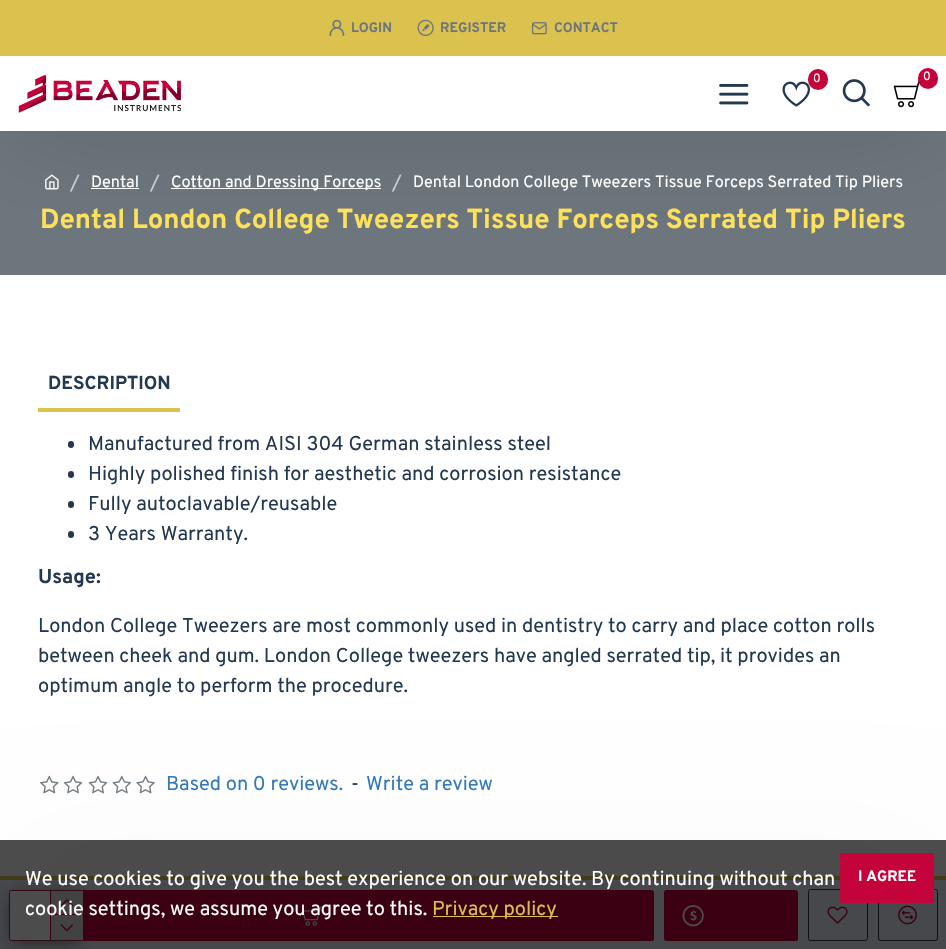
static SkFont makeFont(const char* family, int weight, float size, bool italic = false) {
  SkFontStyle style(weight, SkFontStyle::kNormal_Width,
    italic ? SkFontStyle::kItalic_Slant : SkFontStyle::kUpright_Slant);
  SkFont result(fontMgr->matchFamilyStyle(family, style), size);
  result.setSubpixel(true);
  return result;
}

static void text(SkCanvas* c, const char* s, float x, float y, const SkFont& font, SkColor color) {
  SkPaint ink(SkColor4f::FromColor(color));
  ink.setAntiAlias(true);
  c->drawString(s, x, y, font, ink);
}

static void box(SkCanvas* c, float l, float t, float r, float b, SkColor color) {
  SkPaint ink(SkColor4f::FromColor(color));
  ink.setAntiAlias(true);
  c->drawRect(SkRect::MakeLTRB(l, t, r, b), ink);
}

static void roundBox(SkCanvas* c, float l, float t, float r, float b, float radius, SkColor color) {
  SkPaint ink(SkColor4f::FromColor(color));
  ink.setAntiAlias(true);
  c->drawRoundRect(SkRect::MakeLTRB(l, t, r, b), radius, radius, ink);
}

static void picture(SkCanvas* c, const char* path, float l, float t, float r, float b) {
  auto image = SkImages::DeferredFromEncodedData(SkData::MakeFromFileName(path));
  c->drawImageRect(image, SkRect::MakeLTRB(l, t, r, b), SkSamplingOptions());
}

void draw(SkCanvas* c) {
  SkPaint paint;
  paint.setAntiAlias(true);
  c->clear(0xffffffff);
  box(c, 0, 131, 946, 275, 0xff6d767d);
  picture(c, "img_09.png", 45, 174, 59, 190);
  box(c, 91, 188, 139, 189, 0xffffffff);
  box(c, 171, 188, 381, 189, 0xffffffff);
  paint.setColor(0x33000000);
  paint.setMaskFilter(SkMaskFilter::MakeBlur(kNormal_SkBlurStyle, 53));
  c->drawRect(SkRect::MakeLTRB(13, 69, 934, 119), paint);
  paint.setMaskFilter(nullptr);
  box(c, 0, 0, 946, 56, 0xffdbc24e);
  picture(c, "img_01.png", 329, 19, 345, 36);
  SkFont face1 = makeFont("Overpass", 700, 13.75f);
  text(c, "LOGIN", 351, 32, face1, 0xff6d767d);
  picture(c, "img_02.png", 417, 19, 434, 36);
  text(c, "REGISTER", 440, 32, face1, 0xff6d767d);
  picture(c, "img_03.png", 531, 22, 547, 35);
  text(c, "CONTACT", 554, 32, face1, 0xff6d767d);
  box(c, 0, 56, 946, 131, 0xffffffff);
  picture(c, "img_04.png", 18, 75, 181, 113);
  picture(c, "img_05.png", 782, 81, 810, 107);
  roundBox(c, 808, 69, 828, 90, 10, 0xffc4033a);
  SkFont face2 = makeFont("Overpass", 400, 12);
  text(c, "0", 813, 82, face2, 0xffffffff);
  picture(c, "img_06.png", 893, 80, 920, 108);
  roundBox(c, 918, 68, 938, 89, 10, 0xffc4033a);
  text(c, "0", 923, 80, face2, 0xffffffff);
  picture(c, "img_07.png", 719, 84, 749, 105);
  picture(c, "img_08.png", 842, 79, 870, 107);
  SkFont face3 = makeFont("Overpass", 400, 20);
  text(c, "/", 70, 189, face3, 0xffcccccc);
  SkFont face4 = makeFont("Overpass", 400, 16.25f);
  text(c, "Dental", 91, 187, face4, 0xffffffff);
  text(c, "/", 150, 189, face3, 0xffcccccc);
  text(c, "Cotton and Dressing Forceps", 171, 187, face4, 0xffffffff);
  text(c, "/", 392, 189, face3, 0xffcccccc);
  text(c, "Dental London College Tweezers Tissue Forceps Serrated Tip Pliers", 413, 187, face4, 0xffffffff);
  SkFont face5 = makeFont("Overpass", 700, 27.5f);
  text(c, "Dental London College Tweezers Tissue Forceps Serrated Tip Pliers", 40, 228, face5, 0xfffee15b);
  box(c, 38, 408, 180, 412, 0xffdbc24e);
  SkFont face6 = makeFont("Overpass", 700, 18.75f);
  text(c, "DESCRIPTION", 48, 389, face6, 0xff233851);
  roundBox(c, 68, 441, 74, 448, 3, 0xff233851);
  text(c, "Manufactured from AISI 304 German stainless steel", 88, 450, face3, 0xff233851);
  roundBox(c, 68, 471, 74, 478, 3, 0xff233851);
  text(c, "Highly polished finish for aesthetic and corrosion resistance", 88, 480, face3, 0xff233851);
  roundBox(c, 68, 501, 74, 508, 3, 0xff233851);
  text(c, "Fully autoclavable/reusable", 88, 510, face3, 0xff233851);
  roundBox(c, 68, 531, 74, 538, 3, 0xff233851);
  text(c, "3 Years Warranty.", 88, 540, face3, 0xff233851);
  SkFont face7 = makeFont("Overpass", 700, 20);
  text(c, "Usage:", 38, 583, face7, 0xff233851);
  text(c, "London College Tweezers are most commonly used in dentistry to carry and place cotton rolls", 38, 632, face3, 0xff233851);
  text(c, "between cheek and gum. London College tweezers have angled serrated tip, it provides an", 38, 662, face3, 0xff233851);
  text(c, "optimum angle to perform the procedure.", 38, 692, face3, 0xff233851);
  picture(c, "img_16.png", 40, 775, 59, 794);
  picture(c, "img_17.png", 63, 775, 83, 794);
  picture(c, "img_17.png", 88, 775, 108, 794);
  picture(c, "img_18.png", 112, 775, 131, 794);
  picture(c, "img_19.png", 136, 775, 155, 794);
  paint.setColor(0xfff5f5f5);
  paint.setMaskFilter(SkMaskFilter::MakeBlur(kNormal_SkBlurStyle, 62.5f));
  c->drawRect(SkRect::MakeLTRB(13, 870, 934, 919), paint);
  paint.setMaskFilter(nullptr);
  box(c, 0, 880, 946, 949, 0xffedf2fe);
  box(c, 0, 876, 946, 880, 0xffdbc24e);
  paint.setStyle(SkPaint::kStroke_Style);
  paint.setStrokeWidth(1);
  paint.setColor(0xffc4033a);
  c->drawRoundRect(SkRect::MakeLTRB(9.5f, 890.5f, 83.5f, 940.5f), 2, 2, paint);
  paint.setStyle(SkPaint::kFill_Style);
  paint.setColor(0xff555555);
  paint.setMaskFilter(SkMaskFilter::MakeBlur(kNormal_SkBlurStyle, 9.5f));
  c->drawRect(SkRect::MakeLTRB(13, 896, 80, 940), paint);
  paint.setMaskFilter(nullptr);
  roundBox(c, 10, 891, 83, 940, 2.5f, 0xffffffff);
  box(c, 50, 891, 51, 940, 0xffc4033a);
  roundBox(c, 81, 890, 654, 941, 2.5f, 0xffc4033a);
  box(c, 51, 891, 83, 914, 0xffdddddd);
  box(c, 51, 914, 83, 915, 0xffc4033a);
  picture(c, "img_10.png", 60, 899, 74, 907);
  box(c, 51, 915, 83, 940, 0xffdddddd);
  picture(c, "img_11.png", 60, 924, 74, 932);
  picture(c, "img_12.png", 302, 906, 324, 926);
  roundBox(c, 664, 890, 798, 941, 2.5f, 0xffc4033a);
  picture(c, "img_13.png", 682, 905, 704, 927);
  paint.setStyle(SkPaint::kStroke_Style);
  paint.setColor(0xff233851);
  c->drawRoundRect(SkRect::MakeLTRB(808.5f, 889.5f, 867.5f, 940.5f), 2, 2, paint);
  picture(c, "img_14.png", 827, 906, 848, 924);
  c->drawRoundRect(SkRect::MakeLTRB(878.5f, 889.5f, 937.5f, 940.5f), 2, 2, paint);
  picture(c, "img_15.png", 898, 905, 917, 925);
  text(c, "Based on 0 reviews.", 166, 790, face3, 0xff337ab7);
  text(c, "-", 351, 790, face3, 0xff233851);
  text(c, "Write a review", 366, 790, face3, 0xff337ab7);
  box(c, 0, 840, 946, 949, 0xb3000000);
  text(c, "We use cookies to give you the best experience on our website. By continuing without chan", 25, 885, face3, 0xffffffff);
  text(c, "cookie settings, we assume you agree to this.", 25, 915, face3, 0xffffffff);
  box(c, 433, 916, 558, 917, 0xffdbc24e);
  text(c, "Privacy policy", 432, 915, face3, 0xffdbc24e);
  roundBox(c, 840, 853, 934, 903, 2.5f, 0xffc4033a);
  SkFont face8 = makeFont("Overpass", 700, 15);
  text(c, "I AGREE", 858, 881, face8, 0xffffffff);
}
